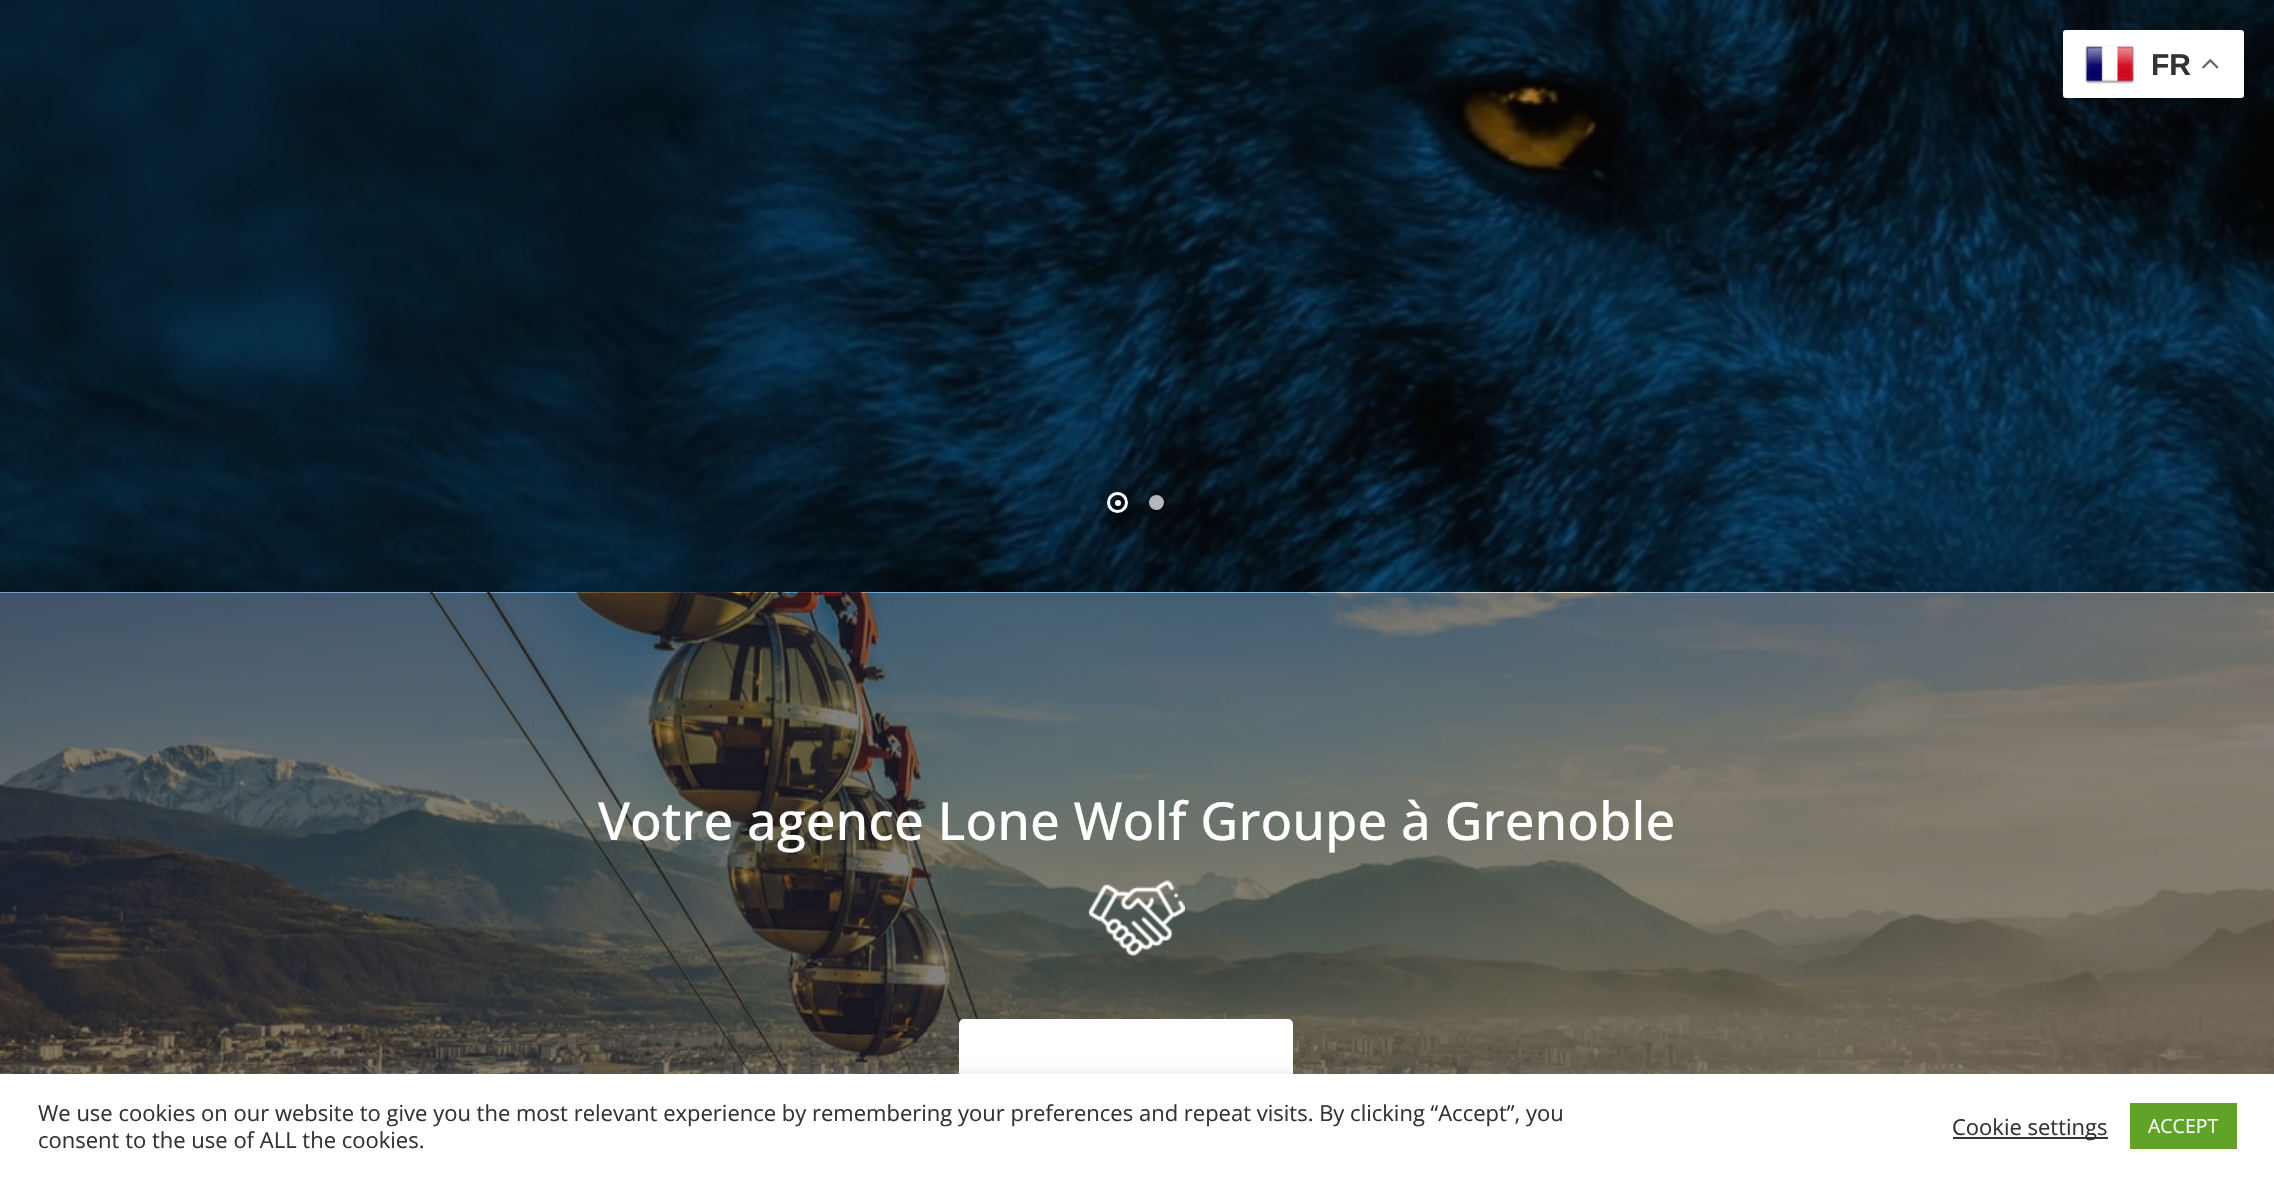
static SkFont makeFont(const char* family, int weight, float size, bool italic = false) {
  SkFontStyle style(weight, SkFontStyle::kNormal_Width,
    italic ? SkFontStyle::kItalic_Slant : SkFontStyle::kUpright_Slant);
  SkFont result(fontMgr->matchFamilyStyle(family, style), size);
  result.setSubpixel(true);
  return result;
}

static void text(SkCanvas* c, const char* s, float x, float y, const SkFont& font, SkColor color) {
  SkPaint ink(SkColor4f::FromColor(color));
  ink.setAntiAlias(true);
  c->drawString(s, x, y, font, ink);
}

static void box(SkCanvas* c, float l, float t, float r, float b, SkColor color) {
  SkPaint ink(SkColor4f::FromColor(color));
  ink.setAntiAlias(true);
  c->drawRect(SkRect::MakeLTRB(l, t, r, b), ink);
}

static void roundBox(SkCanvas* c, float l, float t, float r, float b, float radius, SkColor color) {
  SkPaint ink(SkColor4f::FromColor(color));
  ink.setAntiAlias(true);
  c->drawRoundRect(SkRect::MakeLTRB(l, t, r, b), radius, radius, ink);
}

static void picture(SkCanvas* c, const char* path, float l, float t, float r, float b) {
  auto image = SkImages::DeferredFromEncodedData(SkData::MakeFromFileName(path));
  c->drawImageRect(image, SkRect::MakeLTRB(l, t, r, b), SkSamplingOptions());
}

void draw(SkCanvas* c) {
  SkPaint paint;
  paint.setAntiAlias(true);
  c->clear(0xffffffff);
  picture(c, "img_03.png", 0, 0, 2274, 592);
  roundBox(c, 2063, 30, 2244, 98, 3, 0xffffffff);
  picture(c, "img_01.png", 2085, 45, 2135, 84);
  SkFont face1 = makeFont("Liberation Sans", 700, 30);
  text(c, "FR", 2151, 75, face1, 0xff333333);
  picture(c, "img_02.png", 2202, 59, 2219, 69);
  paint.setStyle(SkPaint::kStroke_Style);
  paint.setStrokeWidth(3);
  paint.setColor(0xffffffff);
  c->drawCircle(1117.5f, 502.5f, 9, paint);
  paint.setStyle(SkPaint::kFill_Style);
  c->drawCircle(1118, 503, 3, paint);
  paint.setColor(0xb3ffffff);
  c->drawCircle(1156.5f, 502.5f, 7.5f, paint);
  picture(c, "img_04.png", 0, 592, 2274, 1074);
  SkFont face2 = makeFont("Open Sans", 500, 52.5f);
  text(c, "Votre agence Lone Wolf Groupe à Grenoble", 598, 840, face2, 0xffffffff);
  picture(c, "img_05.png", 1089, 880, 1185, 956);
  roundBox(c, 959, 1019, 1293, 1127, 5, 0xffffffff);
  paint.setColor(0x4dacabab);
  paint.setMaskFilter(SkMaskFilter::MakeBlur(kNormal_SkBlurStyle, 7.5f));
  c->drawRect(SkRect::MakeLTRB(0, 1073, 2274, 1176), paint);
  paint.setMaskFilter(nullptr);
  box(c, 0, 1074, 2274, 1177, 0xffffffff);
  SkFont face3 = makeFont("Open Sans", 400, 22);
  text(c, "We use cookies on our website to give you the most relevant experience by remembering your preferences and repeat visits. By clicking “Accept”, you", 38, 1121, face3, 0xff333333);
  text(c, "consent to the use of ALL the cookies.", 38, 1148, face3, 0xff333333);
  box(c, 1953, 1137, 2108, 1139, 0xff333333);
  text(c, "Cookie settings", 1952, 1135, face3, 0xff333333);
  box(c, 2130, 1103, 2237, 1149, 0xff61a229);
  SkFont face4 = makeFont("Open Sans", 400, 19.5f);
  text(c, "ACCEPT", 2148, 1133, face4, 0xffffffff);
}
